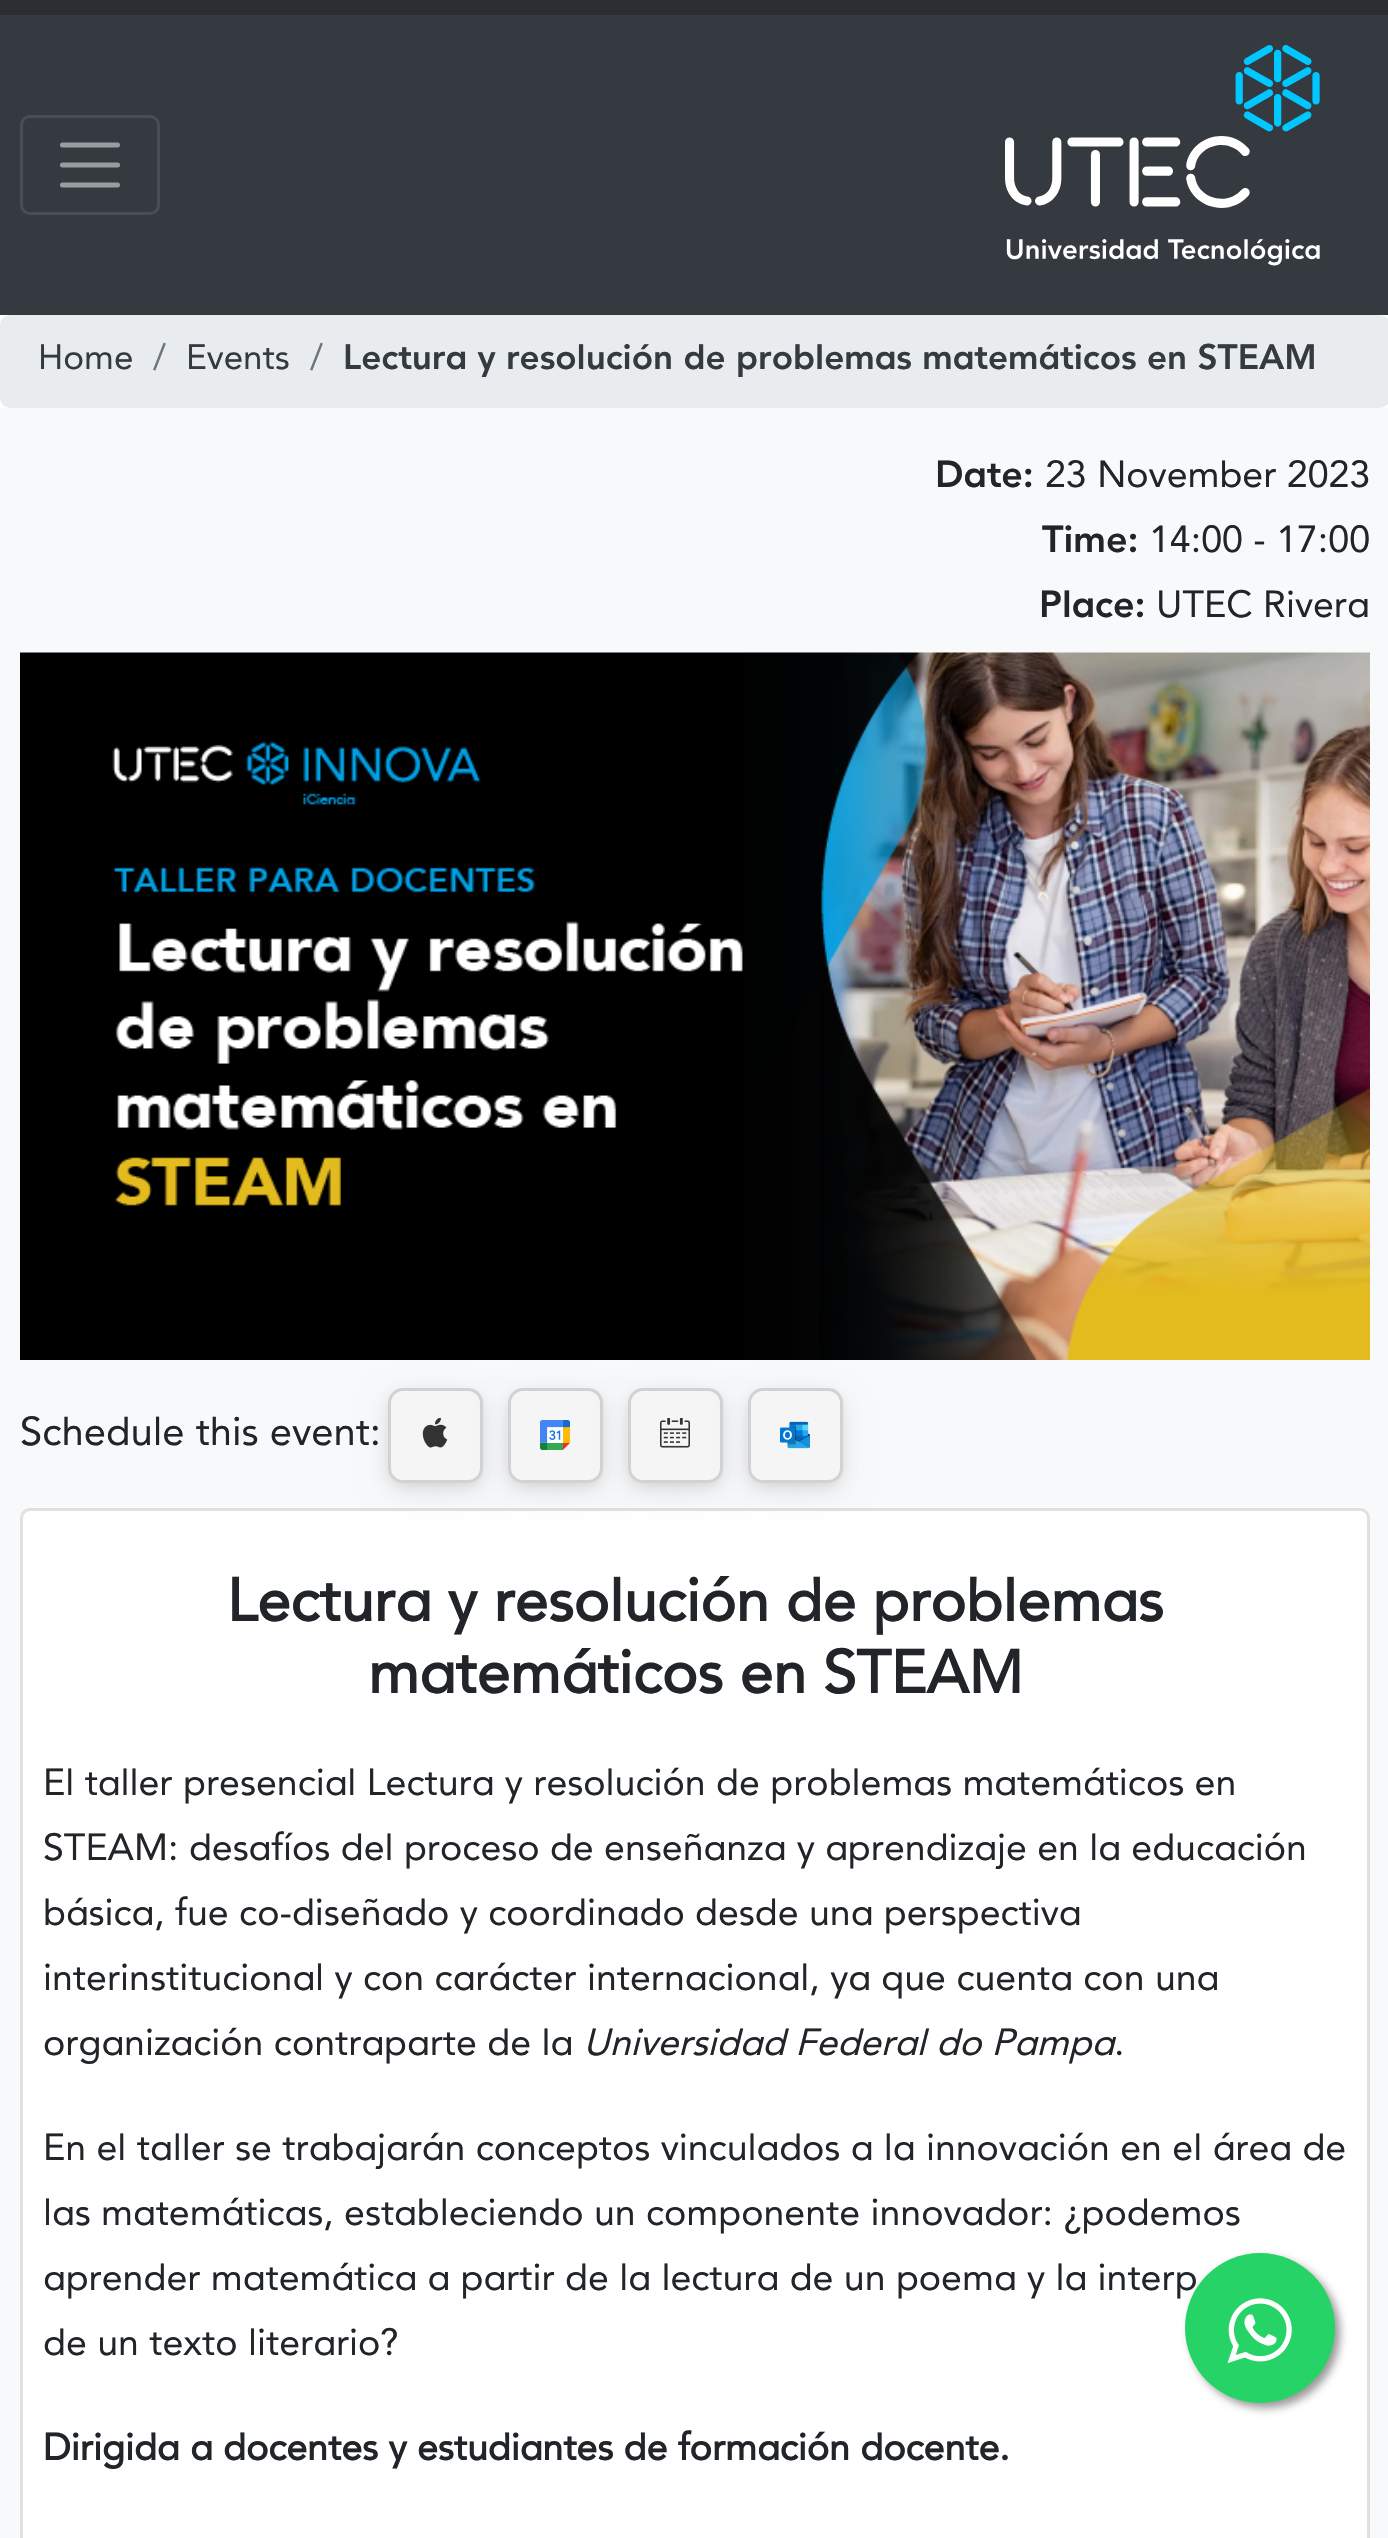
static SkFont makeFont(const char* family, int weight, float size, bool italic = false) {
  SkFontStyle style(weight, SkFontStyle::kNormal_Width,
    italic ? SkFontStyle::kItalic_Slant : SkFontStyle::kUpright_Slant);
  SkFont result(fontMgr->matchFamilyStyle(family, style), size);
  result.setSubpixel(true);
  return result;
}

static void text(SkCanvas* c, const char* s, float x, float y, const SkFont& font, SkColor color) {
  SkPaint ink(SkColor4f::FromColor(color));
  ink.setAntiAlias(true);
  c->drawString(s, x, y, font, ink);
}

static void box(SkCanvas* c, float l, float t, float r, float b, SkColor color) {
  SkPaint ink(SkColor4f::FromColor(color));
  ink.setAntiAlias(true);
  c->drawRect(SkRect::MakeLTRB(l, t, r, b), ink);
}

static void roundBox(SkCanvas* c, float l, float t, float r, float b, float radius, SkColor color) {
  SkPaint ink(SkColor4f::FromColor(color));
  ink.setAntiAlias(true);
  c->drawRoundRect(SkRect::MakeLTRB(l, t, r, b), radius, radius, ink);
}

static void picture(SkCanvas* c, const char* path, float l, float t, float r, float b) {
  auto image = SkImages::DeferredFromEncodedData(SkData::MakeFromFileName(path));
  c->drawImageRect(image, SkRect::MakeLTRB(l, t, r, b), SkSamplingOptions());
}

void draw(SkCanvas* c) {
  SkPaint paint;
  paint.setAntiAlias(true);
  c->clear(0xffffffff);
  box(c, 0, 15, 1388, 315, 0xff343a40);
  box(c, 0, 0, 1388, 15, 0xff2a2e33);
  paint.setStyle(SkPaint::kStroke_Style);
  paint.setStrokeWidth(3);
  paint.setColor(0xff484e53);
  c->drawRoundRect(SkRect::MakeLTRB(21.5f, 116.5f, 158.5f, 213.5f), 8.5f, 8.5f, paint);
  paint.setStrokeWidth(5);
  paint.setStrokeCap(SkPaint::kRound_Cap);
  paint.setColor(0xff9a9da0);
  c->drawPath(SkPathBuilder().moveTo(62.5f, 145).lineTo(117.5f, 145).moveTo(62.5f, 165).lineTo(117.5f, 165).moveTo(62.5f, 185).lineTo(117.5f, 185).detach(), paint);
  picture(c, "img_01.png", 1005, 45, 1320, 266);
  roundBox(c, 0, 315, 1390, 408, 10, 0xffe9ecef);
  SkFont face1 = makeFont("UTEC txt", 400, 35);
  text(c, "Home", 38, 369, face1, 0xff343a40);
  text(c, "/", 153, 369, face1, 0xff6c757d);
  text(c, "Events", 186, 369, face1, 0xff343a40);
  text(c, "/", 310, 369, face1, 0xff6c757d);
  SkFont face2 = makeFont("UTEC txt", 900, 35);
  text(c, "Lectura y resolución de problemas matemáticos en STEAM", 343, 369, face2, 0xff343a40);
  box(c, 0, 408, 1388, 2538, 0xfff8f9fa);
  SkFont face3 = makeFont("UTEC txt", 900, 37.5f);
  text(c, "Date:", 935, 487, face3, 0xff212529);
  SkFont face4 = makeFont("UTEC txt", 400, 37.5f);
  text(c, "23 November 2023", 1045, 487, face4, 0xff212529);
  text(c, "Time:", 1042, 552, face3, 0xff212529);
  text(c, "14:00 - 17:00", 1149, 552, face4, 0xff212529);
  text(c, "Place:", 1039, 617, face3, 0xff212529);
  text(c, "UTEC Rivera", 1156, 617, face4, 0xff212529);
  picture(c, "img_02.png", 20, 652, 1370, 1360);
  SkFont face5 = makeFont("UTEC txt", 400, 40);
  text(c, "Schedule this event:", 20, 1445, face5, 0xff212529);
  roundBox(c, 20, 1508, 1370, 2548, 10, 0xffffffff);
  paint.setStrokeWidth(3);
  paint.setStrokeCap(SkPaint::kButt_Cap);
  paint.setColor(0x1f000000);
  c->drawRoundRect(SkRect::MakeLTRB(21.5f, 1509.5f, 1368.5f, 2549.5f), 8.5f, 8.5f, paint);
  paint.setStyle(SkPaint::kFill_Style);
  paint.setMaskFilter(SkMaskFilter::MakeBlur(kNormal_SkBlurStyle, 7.5f));
  c->drawRoundRect(SkRect::MakeLTRB(390, 1395, 480, 1485), 13, 13, paint);
  paint.setMaskFilter(nullptr);
  paint.setColor(0x14000000);
  paint.setMaskFilter(SkMaskFilter::MakeBlur(kNormal_SkBlurStyle, 17.5f));
  c->drawRoundRect(SkRect::MakeLTRB(393, 1403, 478, 1488), 10, 10, paint);
  paint.setMaskFilter(nullptr);
  paint.setColor(0xfff5f5f5);
  c->drawRoundRect(SkRect::MakeLTRB(389.5f, 1389.5f, 481.5f, 1481.5f), 13.5f, 13.5f, paint);
  paint.setStyle(SkPaint::kStroke_Style);
  paint.setColor(0xffd2d2d2);
  c->drawRoundRect(SkRect::MakeLTRB(389.5f, 1389.5f, 481.5f, 1481.5f), 13.5f, 13.5f, paint);
  picture(c, "img_03.png", 422, 1418, 448, 1448);
  paint.setStyle(SkPaint::kFill_Style);
  paint.setColor(0x1f000000);
  paint.setMaskFilter(SkMaskFilter::MakeBlur(kNormal_SkBlurStyle, 7.5f));
  c->drawRoundRect(SkRect::MakeLTRB(510, 1395, 600, 1485), 13, 13, paint);
  paint.setMaskFilter(nullptr);
  paint.setColor(0x14000000);
  paint.setMaskFilter(SkMaskFilter::MakeBlur(kNormal_SkBlurStyle, 17.5f));
  c->drawRoundRect(SkRect::MakeLTRB(513, 1403, 598, 1488), 10, 10, paint);
  paint.setMaskFilter(nullptr);
  paint.setColor(0xfff5f5f5);
  c->drawRoundRect(SkRect::MakeLTRB(509.5f, 1389.5f, 601.5f, 1481.5f), 13.5f, 13.5f, paint);
  paint.setStyle(SkPaint::kStroke_Style);
  paint.setColor(0xffd2d2d2);
  c->drawRoundRect(SkRect::MakeLTRB(509.5f, 1389.5f, 601.5f, 1481.5f), 13.5f, 13.5f, paint);
  picture(c, "img_04.png", 540, 1420, 570, 1450);
  paint.setStyle(SkPaint::kFill_Style);
  paint.setColor(0x1f000000);
  paint.setMaskFilter(SkMaskFilter::MakeBlur(kNormal_SkBlurStyle, 7.5f));
  c->drawRoundRect(SkRect::MakeLTRB(630, 1395, 720, 1485), 13, 13, paint);
  paint.setMaskFilter(nullptr);
  paint.setColor(0x14000000);
  paint.setMaskFilter(SkMaskFilter::MakeBlur(kNormal_SkBlurStyle, 17.5f));
  c->drawRoundRect(SkRect::MakeLTRB(633, 1403, 718, 1488), 10, 10, paint);
  paint.setMaskFilter(nullptr);
  paint.setColor(0xfff5f5f5);
  c->drawRoundRect(SkRect::MakeLTRB(629.5f, 1389.5f, 721.5f, 1481.5f), 13.5f, 13.5f, paint);
  paint.setStyle(SkPaint::kStroke_Style);
  paint.setColor(0xffd2d2d2);
  c->drawRoundRect(SkRect::MakeLTRB(629.5f, 1389.5f, 721.5f, 1481.5f), 13.5f, 13.5f, paint);
  picture(c, "img_05.png", 660, 1418, 690, 1448);
  paint.setStyle(SkPaint::kFill_Style);
  paint.setColor(0x1f000000);
  paint.setMaskFilter(SkMaskFilter::MakeBlur(kNormal_SkBlurStyle, 7.5f));
  c->drawRoundRect(SkRect::MakeLTRB(750, 1395, 840, 1485), 13, 13, paint);
  paint.setMaskFilter(nullptr);
  paint.setColor(0x14000000);
  paint.setMaskFilter(SkMaskFilter::MakeBlur(kNormal_SkBlurStyle, 17.5f));
  c->drawRoundRect(SkRect::MakeLTRB(753, 1403, 838, 1488), 10, 10, paint);
  paint.setMaskFilter(nullptr);
  paint.setColor(0xfff5f5f5);
  c->drawRoundRect(SkRect::MakeLTRB(749.5f, 1389.5f, 841.5f, 1481.5f), 13.5f, 13.5f, paint);
  paint.setStyle(SkPaint::kStroke_Style);
  paint.setColor(0xffd2d2d2);
  c->drawRoundRect(SkRect::MakeLTRB(749.5f, 1389.5f, 841.5f, 1481.5f), 13.5f, 13.5f, paint);
  picture(c, "img_06.png", 780, 1421, 810, 1449);
  SkFont face6 = makeFont("UTEC txt", 700, 60);
  text(c, "Lectura y resolución de problemas", 227, 1621, face6, 0xff212529);
  text(c, "matemáticos en STEAM", 368, 1693, face6, 0xff212529);
  text(c, "El taller presencial Lectura y resolución de problemas matemáticos en", 43, 1795, face4, 0xff212529);
  text(c, "STEAM: desafíos del proceso de enseñanza y aprendizaje en la educación", 43, 1860, face4, 0xff212529);
  text(c, "básica, fue co-diseñado y coordinado desde una perspectiva", 43, 1925, face4, 0xff212529);
  text(c, "interinstitucional y con carácter internacional, ya que cuenta con una", 43, 1990, face4, 0xff212529);
  text(c, "organización contraparte de la", 43, 2055, face4, 0xff212529);
  SkFont face7 = makeFont("UTEC txt", 400, 37.5f, true);
  text(c, "Universidad Federal do Pampa", 583, 2055, face7, 0xff212529);
  text(c, ".", 1114, 2055, face4, 0xff212529);
  text(c, "En el taller se trabajarán conceptos vinculados a la innovación en el área de", 43, 2160, face4, 0xff212529);
  text(c, "las matemáticas, estableciendo un componente innovador: ¿podemos", 43, 2225, face4, 0xff212529);
  text(c, "aprender matemática a partir de la lectura de un poema y la interp", 43, 2290, face4, 0xff212529);
  text(c, "de un texto literario?", 43, 2355, face4, 0xff212529);
  SkFont face8 = makeFont("UTEC txt", 700, 37.5f);
  text(c, "Dirigida a docentes y estudiantes de formación docente.", 43, 2460, face8, 0xff212529);
  paint.setStyle(SkPaint::kFill_Style);
  paint.setColor(0xff999999);
  paint.setMaskFilter(SkMaskFilter::MakeBlur(kNormal_SkBlurStyle, 4));
  c->drawRoundRect(SkRect::MakeLTRB(1190, 2258, 1340, 2408), 75, 75, paint);
  paint.setMaskFilter(nullptr);
  paint.setColor(0xff25d366);
  c->drawCircle(1260, 2328, 75, paint);
  picture(c, "img_07.png", 1227, 2298, 1292, 2363);
}
